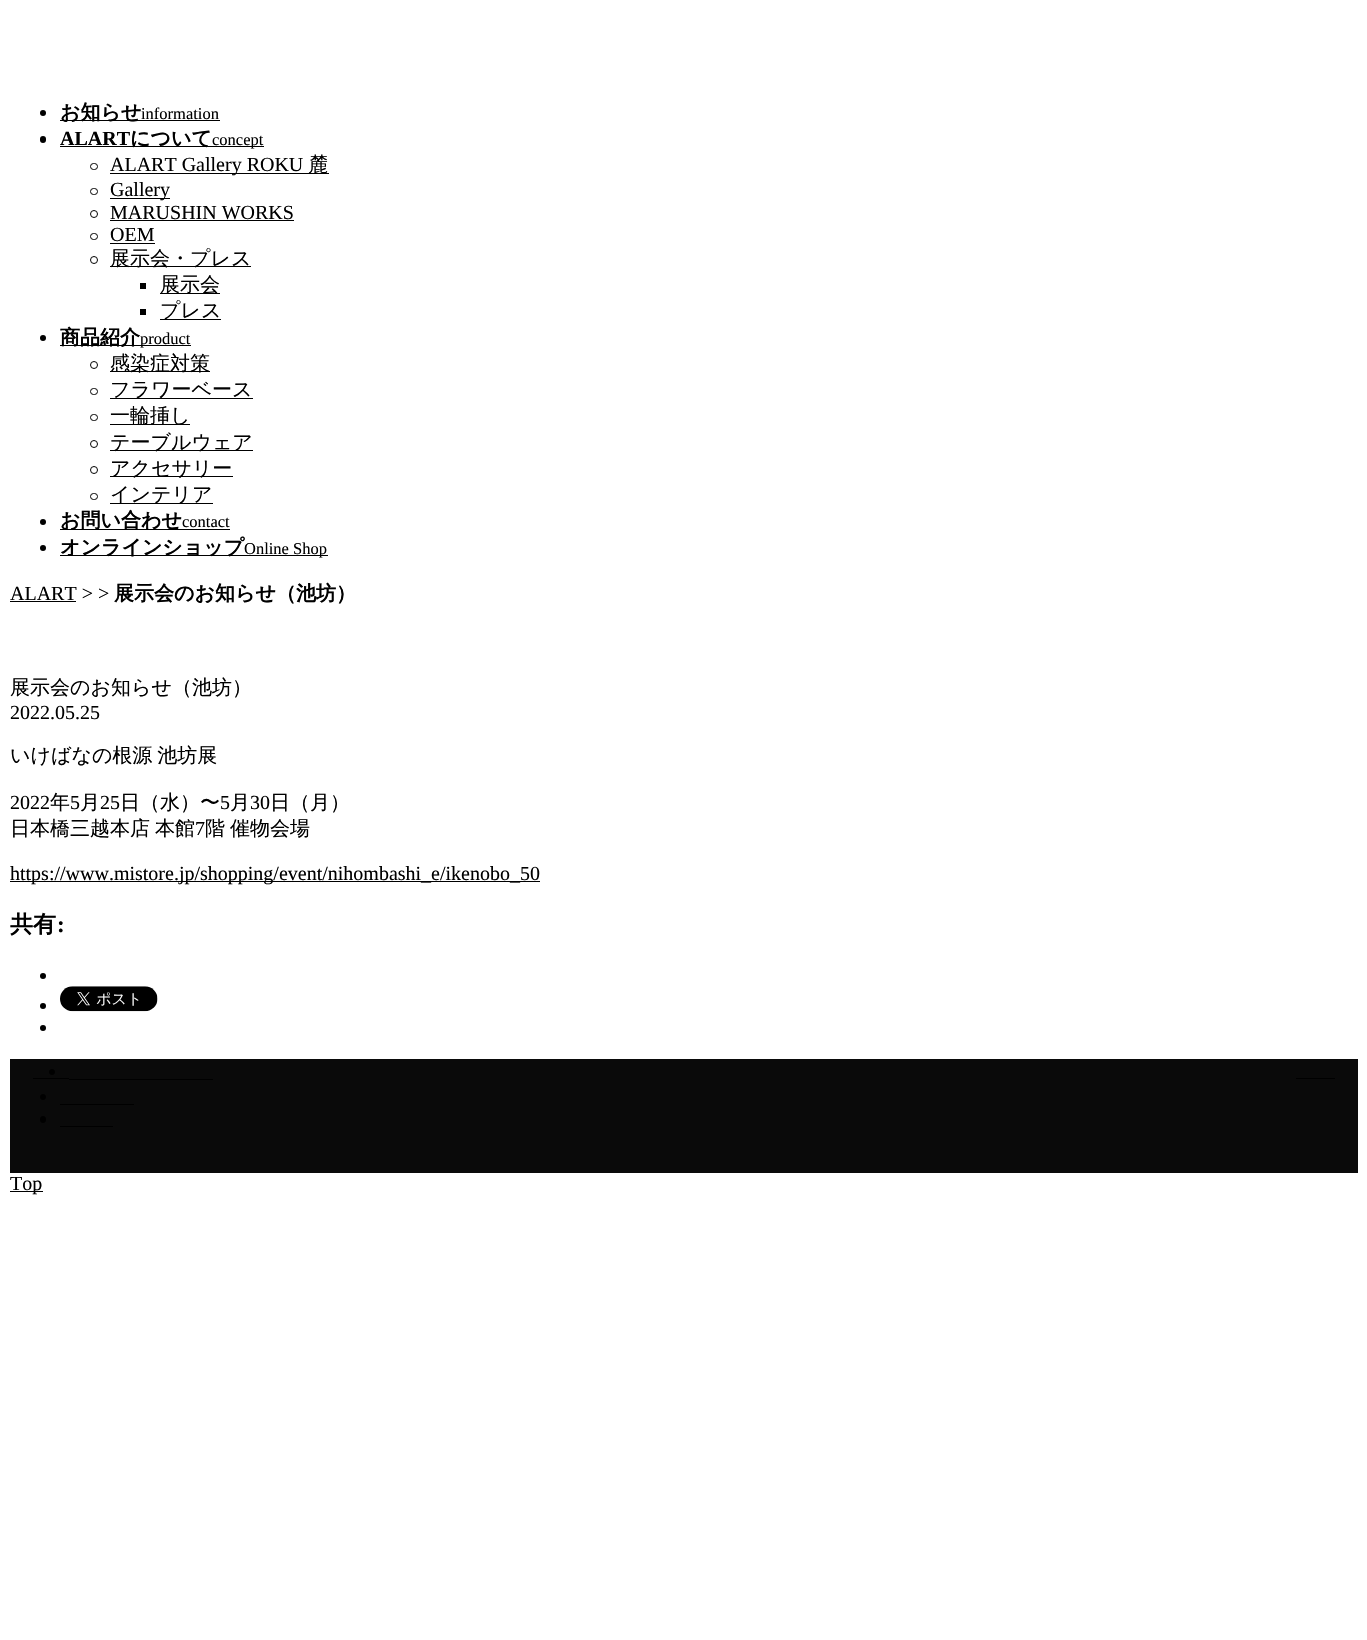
static SkFont makeFont(const char* family, int weight, float size, bool italic = false) {
  SkFontStyle style(weight, SkFontStyle::kNormal_Width,
    italic ? SkFontStyle::kItalic_Slant : SkFontStyle::kUpright_Slant);
  SkFont result(fontMgr->matchFamilyStyle(family, style), size);
  result.setSubpixel(true);
  return result;
}

static void text(SkCanvas* c, const char* s, float x, float y, const SkFont& font, SkColor color) {
  SkPaint ink(SkColor4f::FromColor(color));
  ink.setAntiAlias(true);
  c->drawString(s, x, y, font, ink);
}

static void spacedText(SkCanvas* c, const char* s, float x, float y, const SkFont& font, const SkPaint& ink, float letter, float word) {
  std::vector<SkGlyphID> glyphs(font.countText(s, strlen(s), SkTextEncoding::kUTF8));
  std::vector<float> xs(glyphs.size());
  font.textToGlyphs(s, strlen(s), SkTextEncoding::kUTF8, glyphs);
  font.getXPos(glyphs, xs, x);
  float extra = 0;
  for (size_t i = 0; i < glyphs.size(); i++) {
    xs[i] += extra;
    extra += letter + word * (glyphs[i] == font.unicharToGlyph(' '));
  }
  c->drawTextBlob(SkTextBlob::MakeFromPosHGlyphs(glyphs, xs, y, font), 0, 0, ink);
}

static void box(SkCanvas* c, float l, float t, float r, float b, SkColor color) {
  SkPaint ink(SkColor4f::FromColor(color));
  ink.setAntiAlias(true);
  c->drawRect(SkRect::MakeLTRB(l, t, r, b), ink);
}

static void roundBox(SkCanvas* c, float l, float t, float r, float b, float radius, SkColor color) {
  SkPaint ink(SkColor4f::FromColor(color));
  ink.setAntiAlias(true);
  c->drawRoundRect(SkRect::MakeLTRB(l, t, r, b), radius, radius, ink);
}

static void picture(SkCanvas* c, const char* path, float l, float t, float r, float b) {
  auto image = SkImages::DeferredFromEncodedData(SkData::MakeFromFileName(path));
  c->drawImageRect(image, SkRect::MakeLTRB(l, t, r, b), SkSamplingOptions());
}

void draw(SkCanvas* c) {
  SkPaint paint;
  paint.setAntiAlias(true);
  c->clear(0xffffffff);
  paint.setColor(0xff000000);
  c->drawCircle(43, 113, 3, paint);
  box(c, 60, 120, 220, 121, 0xff000000);
  SkFont face1 = makeFont("WenQuanYi Zen Hei", 700, 20);
  text(c, "お知らせ", 60, 119, face1, 0xff000000);
  SkFont face2 = makeFont("Liberation Serif", 400, 16.5f);
  text(c, "information", 141, 119, face2, 0xff000000);
  roundBox(c, 40, 136, 46, 143, 3, 0xff000000);
  SkFont face3 = makeFont("Liberation Serif", 700, 20);
  text(c, "ALART", 60, 145, face3, 0xff000000);
  box(c, 60, 146, 264, 147, 0xff000000);
  text(c, "について", 130, 145, face1, 0xff000000);
  text(c, "concept", 212, 145, face2, 0xff000000);
  paint.setStyle(SkPaint::kStroke_Style);
  paint.setStrokeWidth(1);
  c->drawRoundRect(SkRect::MakeLTRB(90.5f, 163.5f, 97.5f, 169.5f), 3, 3, paint);
  box(c, 110, 173, 329, 174, 0xff000000);
  SkFont face4 = makeFont("Liberation Serif", 400, 20);
  text(c, "ALART Gallery ROKU", 110, 171, face4, 0xff000000);
  SkFont face5 = makeFont("WenQuanYi Zen Hei", 500, 20);
  text(c, "麓", 308, 171, face5, 0xff000000);
  c->drawRoundRect(SkRect::MakeLTRB(90.5f, 188.5f, 97.5f, 194.5f), 3, 3, paint);
  box(c, 110, 198, 170, 199, 0xff000000);
  text(c, "Gallery", 110, 196, face4, 0xff000000);
  c->drawCircle(94, 214, 3.5f, paint);
  text(c, "MARUSHIN WORKS", 110, 219, face4, 0xff000000);
  box(c, 110, 220, 294, 221, 0xff000000);
  c->drawRoundRect(SkRect::MakeLTRB(90.5f, 233.5f, 97.5f, 239.5f), 3, 3, paint);
  text(c, "OEM", 110, 241, face4, 0xff000000);
  box(c, 110, 243, 155, 244, 0xff000000);
  c->drawCircle(94, 260, 3.5f, paint);
  box(c, 110, 266, 251, 267, 0xff000000);
  text(c, "展示会・プレス", 110, 265, face5, 0xff000000);
  box(c, 140, 283, 146, 289, 0xff000000);
  box(c, 160, 293, 220, 294, 0xff000000);
  text(c, "展示会", 160, 291, face5, 0xff000000);
  box(c, 140, 309, 146, 315, 0xff000000);
  box(c, 160, 319, 221, 320, 0xff000000);
  text(c, "プレス", 160, 317, face5, 0xff000000);
  paint.setStyle(SkPaint::kFill_Style);
  c->drawCircle(43, 338, 3, paint);
  box(c, 60, 345, 191, 346, 0xff000000);
  text(c, "商品紹介", 60, 344, face1, 0xff000000);
  text(c, "product", 140, 344, face2, 0xff000000);
  paint.setStyle(SkPaint::kStroke_Style);
  c->drawCircle(94, 365, 3.5f, paint);
  box(c, 110, 371, 210, 372, 0xff000000);
  text(c, "感染症対策", 110, 370, face5, 0xff000000);
  c->drawRoundRect(SkRect::MakeLTRB(90.5f, 388.5f, 97.5f, 394.5f), 3, 3, paint);
  box(c, 110, 398, 253, 399, 0xff000000);
  text(c, "フラワーベース", 110, 396, face5, 0xff000000);
  c->drawRoundRect(SkRect::MakeLTRB(90.5f, 414.5f, 97.5f, 420.5f), 3, 3, paint);
  box(c, 110, 424, 190, 425, 0xff000000);
  text(c, "一輪挿し", 110, 422, face5, 0xff000000);
  c->drawCircle(94, 444, 3.5f, paint);
  box(c, 110, 450, 253, 451, 0xff000000);
  text(c, "テーブルウェア", 110, 449, face5, 0xff000000);
  c->drawCircle(94, 470, 3.5f, paint);
  box(c, 110, 476, 233, 477, 0xff000000);
  text(c, "アクセサリー", 110, 475, face5, 0xff000000);
  c->drawRoundRect(SkRect::MakeLTRB(90.5f, 493.5f, 97.5f, 499.5f), 3, 3, paint);
  box(c, 110, 503, 213, 504, 0xff000000);
  text(c, "インテリア", 110, 501, face5, 0xff000000);
  paint.setStyle(SkPaint::kFill_Style);
  c->drawCircle(43, 522, 3, paint);
  box(c, 60, 529, 230, 530, 0xff000000);
  text(c, "お問い合わせ", 60, 527, face1, 0xff000000);
  text(c, "contact", 182, 527, face2, 0xff000000);
  c->drawCircle(43, 548, 3, paint);
  box(c, 60, 555, 244, 556, 0xff000000);
  text(c, "オンラインショップ", 60, 554, face1, 0xff000000);
  box(c, 244, 555, 328, 556, 0xff000000);
  text(c, "Online Shop", 244, 554, face2, 0xff000000);
  text(c, "ALART > >", 10, 600, face4, 0xff000000);
  box(c, 10, 601, 76, 602, 0xff000000);
  text(c, "展示会のお知らせ（池坊）", 114, 600, face1, 0xff000000);
  text(c, "展示会のお知らせ（池坊）", 10, 694, face5, 0xff000000);
  text(c, "2022.05.25", 10, 719, face4, 0xff000000);
  spacedText(c, "いけばなの根源 池坊展", 10, 762, face5, paint, 0, -1);
  text(c, "2022", 10, 809, face4, 0xff000000);
  text(c, "年", 50, 809, face5, 0xff000000);
  text(c, "5", 70, 809, face4, 0xff000000);
  text(c, "月", 80, 809, face5, 0xff000000);
  text(c, "25", 100, 809, face4, 0xff000000);
  text(c, "日（水）〜", 120, 809, face5, 0xff000000);
  text(c, "5", 220, 809, face4, 0xff000000);
  text(c, "月", 230, 809, face5, 0xff000000);
  text(c, "30", 250, 809, face4, 0xff000000);
  text(c, "日（月）", 270, 809, face5, 0xff000000);
  spacedText(c, "日本橋三越本店 本館", 10, 835, face5, paint, 0, -1);
  text(c, "7", 195, 835, face4, 0xff000000);
  spacedText(c, "階 催物会場", 205, 835, face5, paint, 0, -1);
  box(c, 10, 881, 540, 882, 0xff000000);
  text(c, "https://www.mistore.jp/shopping/event/nihombashi_e/ikenobo_50", 10, 880, face4, 0xff000000);
  SkFont face6 = makeFont("WenQuanYi Zen Hei", 700, 23);
  text(c, "共有", 10, 932, face6, 0xff000000);
  SkFont face7 = makeFont("Liberation Serif", 700, 23);
  text(c, ":", 57, 932, face7, 0xff000000);
  c->drawCircle(43, 976, 3, paint);
  c->drawCircle(43, 1006, 3, paint);
  picture(c, "img_01.png", 60, 986, 158, 1012);
  c->drawCircle(43, 1028, 3, paint);
  box(c, 10, 1059, 1358, 1173, 0xff0a0a0a);
  box(c, 33, 1078, 69, 1079, 0xff000000);
  box(c, 1296, 1078, 1335, 1079, 0xff000000);
  c->drawCircle(52, 1072, 3, paint);
  box(c, 69, 1079, 213, 1080, 0xff000000);
  c->drawCircle(43, 1097, 3, paint);
  box(c, 60, 1104, 134, 1105, 0xff000000);
  roundBox(c, 40, 1116, 46, 1123, 3, 0xff000000);
  box(c, 60, 1126, 113, 1127, 0xff000000);
  box(c, 10, 1191, 43, 1192, 0xff000000);
  text(c, "Top", 10, 1190, face4, 0xff000000);
}
